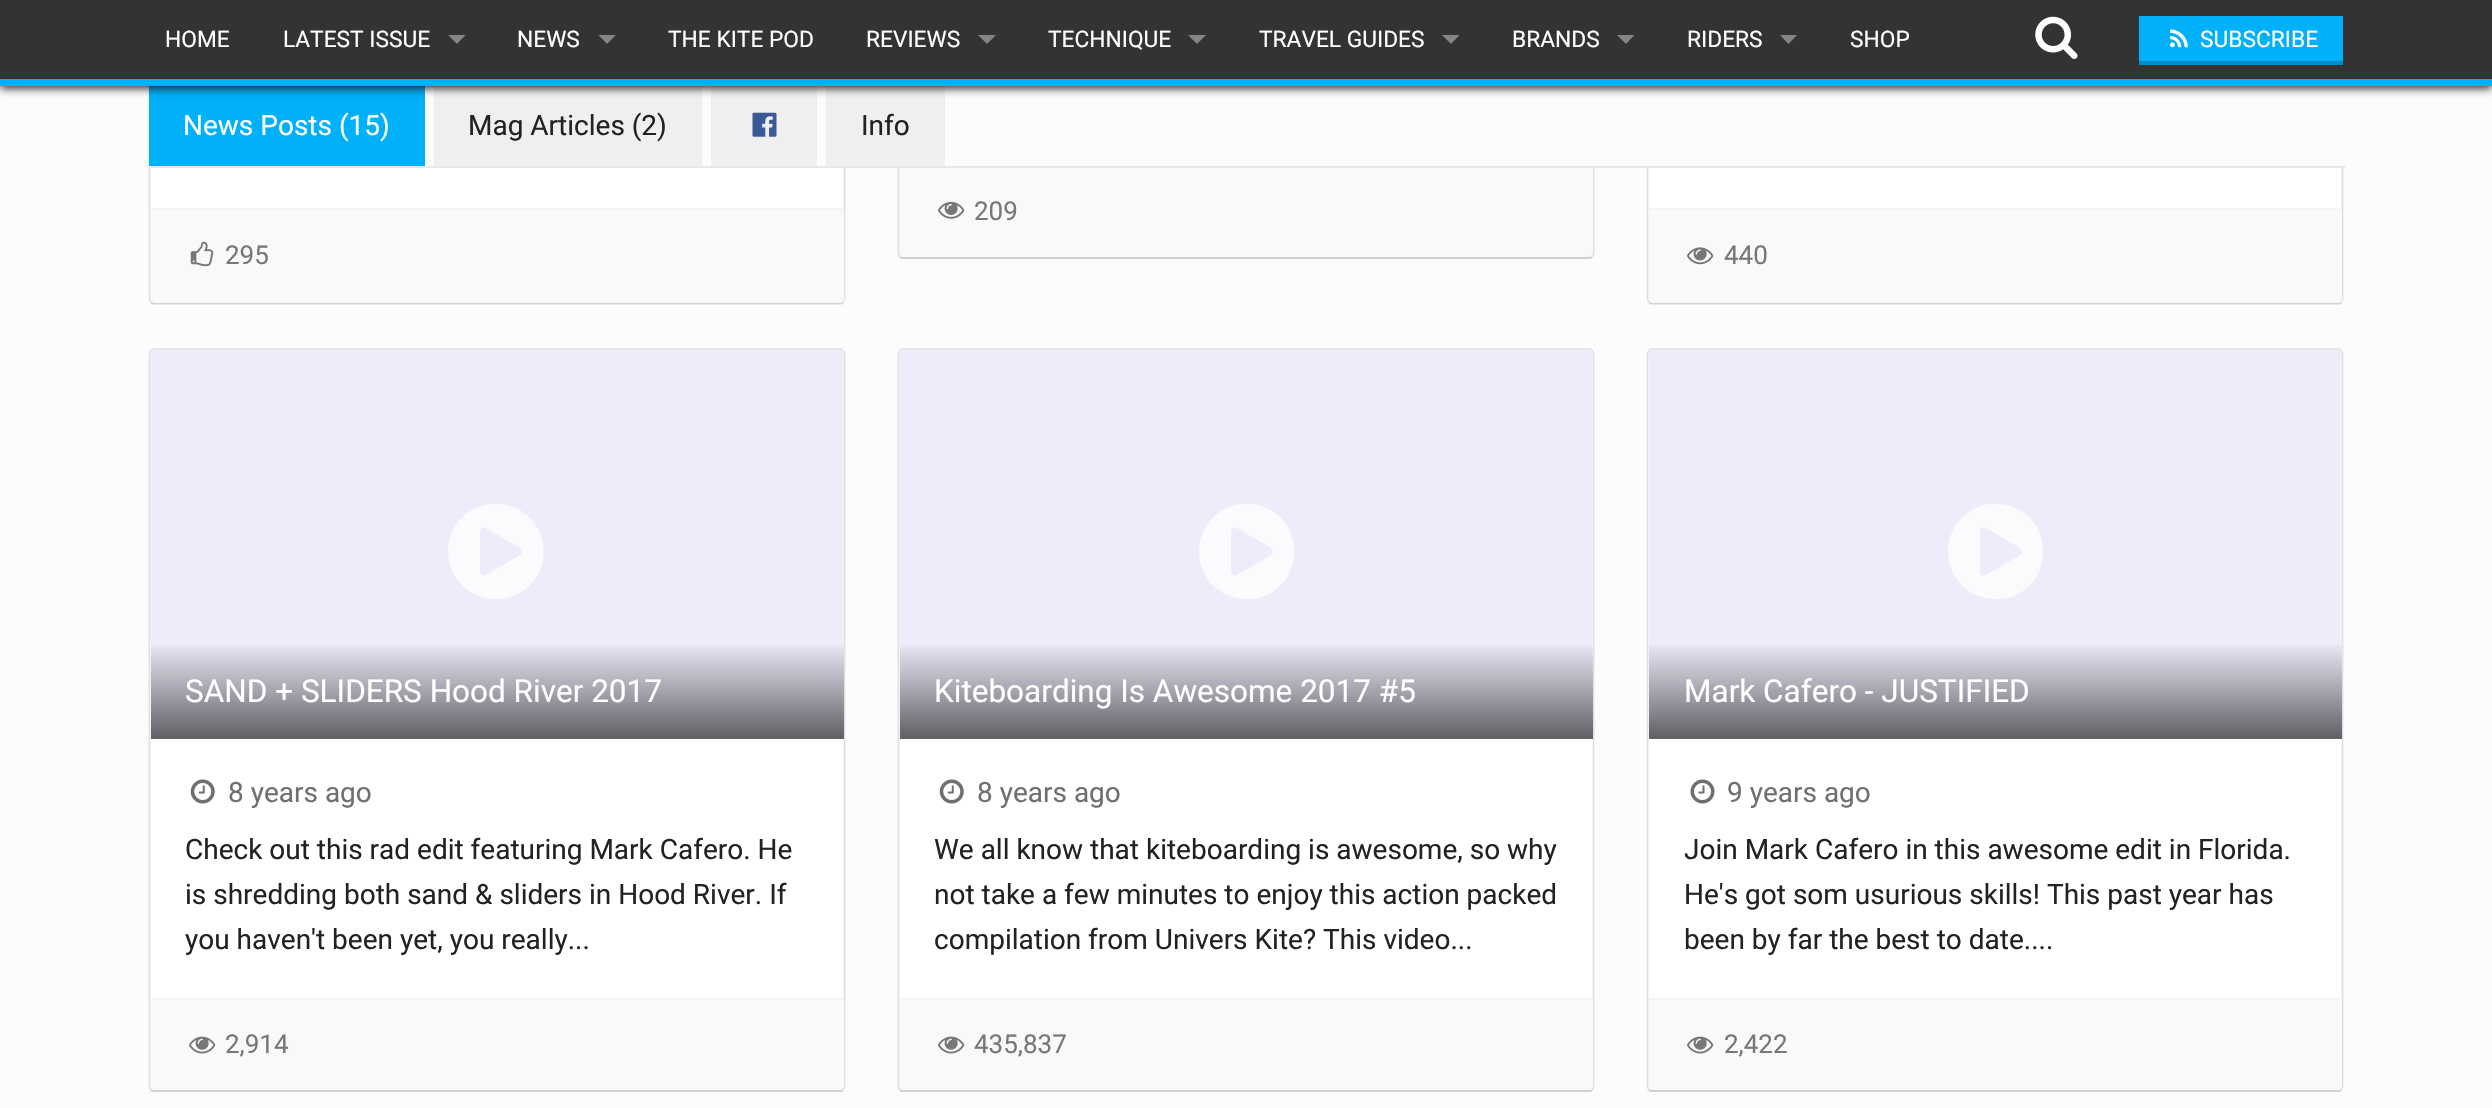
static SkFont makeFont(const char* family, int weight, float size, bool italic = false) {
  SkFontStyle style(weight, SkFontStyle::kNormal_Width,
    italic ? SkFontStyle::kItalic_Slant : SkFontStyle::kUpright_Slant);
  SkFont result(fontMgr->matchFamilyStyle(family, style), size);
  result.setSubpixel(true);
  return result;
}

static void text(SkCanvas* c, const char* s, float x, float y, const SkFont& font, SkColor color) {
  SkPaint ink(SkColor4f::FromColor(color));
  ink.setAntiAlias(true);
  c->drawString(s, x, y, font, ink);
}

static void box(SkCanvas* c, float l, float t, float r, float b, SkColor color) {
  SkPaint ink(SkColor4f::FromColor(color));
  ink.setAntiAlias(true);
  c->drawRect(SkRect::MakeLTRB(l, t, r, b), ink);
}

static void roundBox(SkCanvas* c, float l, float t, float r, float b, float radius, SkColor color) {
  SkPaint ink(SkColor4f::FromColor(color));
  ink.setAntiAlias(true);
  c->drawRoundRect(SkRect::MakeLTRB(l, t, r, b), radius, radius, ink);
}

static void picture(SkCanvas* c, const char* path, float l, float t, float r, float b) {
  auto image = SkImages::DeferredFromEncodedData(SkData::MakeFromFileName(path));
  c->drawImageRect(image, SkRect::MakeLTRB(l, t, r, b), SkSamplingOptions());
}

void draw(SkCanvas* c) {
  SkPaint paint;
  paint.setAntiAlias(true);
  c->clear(0xfffcfcfc);
  roundBox(c, 898, -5, 1594, 259, 5, 0xffffffff);
  paint.setStyle(SkPaint::kStroke_Style);
  paint.setStrokeWidth(1.8f);
  paint.setColor(0xffdfe0e4);
  c->drawPath(SkPathBuilder().moveTo(1592, -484.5f).lineTo(1593.5f, -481).lineTo(1593.5f, 254).lineTo(1592, 257).detach(), paint);
  paint.setColor(0xffd0d1d5);
  c->drawPath(SkPathBuilder().moveTo(1592, 257).cubicTo(1591.5f, 257.5f, 1590, 258, 1589, 258).lineTo(903, 258).cubicTo(902, 258, 900.5f, 257.5f, 900, 257).detach(), paint);
  paint.setColor(0xffdfe0e4);
  c->drawPath(SkPathBuilder().moveTo(900, 257).lineTo(898.5f, 254).lineTo(898.5f, -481).lineTo(900, -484.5f).detach(), paint);
  paint.setStyle(SkPaint::kFill_Style);
  paint.setColor(0xfff9f9f9);
  c->drawPath(SkPathBuilder().moveTo(900, 163).lineTo(1593, 163).lineTo(1593, 253).cubicTo(1593, 255, 1591, 257, 1589, 257).lineTo(904, 257).cubicTo(902, 257, 900, 255, 900, 253).close().detach(), paint);
  roundBox(c, 149, -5, 845, 305, 5, 0xffffffff);
  paint.setStyle(SkPaint::kStroke_Style);
  paint.setColor(0xffdfe0e4);
  c->drawPath(SkPathBuilder().moveTo(843, -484.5f).lineTo(844.5f, -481).lineTo(844.5f, 299).lineTo(843, 302.5f).detach(), paint);
  roundBox(c, 1647, -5, 2343, 305, 5, 0xffffffff);
  c->drawPath(SkPathBuilder().moveTo(2341, -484.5f).lineTo(2342.5f, -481).lineTo(2342.5f, 299).lineTo(2341, 302.5f).detach(), paint);
  paint.setColor(0xffd0d1d5);
  c->drawPath(SkPathBuilder().moveTo(2341, 302.5f).cubicTo(2340.5f, 303, 2339, 303.5f, 2338, 303.5f).lineTo(1652, 303.5f).cubicTo(1651, 303.5f, 1649.5f, 303, 1649, 302.5f).detach(), paint);
  paint.setColor(0xffdfe0e4);
  c->drawPath(SkPathBuilder().moveTo(1649, 302.5f).lineTo(1647.5f, 299).lineTo(1647.5f, -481).lineTo(1649, -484.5f).detach(), paint);
  box(c, 425, 86, 2344, 166, 0xfffcfcfc);
  paint.setColor(0xffd0d1d5);
  c->drawPath(SkPathBuilder().moveTo(843, 302.5f).cubicTo(842.5f, 303, 841, 303.5f, 840, 303.5f).lineTo(154, 303.5f).cubicTo(153, 303.5f, 151.5f, 303, 151, 302.5f).detach(), paint);
  paint.setColor(0xffdfe0e4);
  c->drawPath(SkPathBuilder().moveTo(151, 302.5f).lineTo(149.5f, 299).lineTo(149.5f, -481).lineTo(151, -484.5f).detach(), paint);
  box(c, 149, 86, 425, 166, 0xff00b0f9);
  box(c, 434, 86, 702, 166, 0xffefefef);
  box(c, 711, 86, 817, 166, 0xffefefef);
  box(c, 826, 86, 945, 166, 0xffefefef);
  paint.setStyle(SkPaint::kFill_Style);
  paint.setColor(0xff1b1b1b);
  paint.setMaskFilter(SkMaskFilter::MakeBlur(kNormal_SkBlurStyle, 4.5f));
  c->drawRect(SkRect::MakeLTRB(0, 2, 2492, 88), paint);
  paint.setMaskFilter(nullptr);
  box(c, 0, 0, 2492, 79, 0xff333333);
  box(c, 0, 79, 2492, 86, 0xff00b0f9);
  SkFont face1 = makeFont("Roboto", 400, 22.75f);
  text(c, "HOME", 165, 47, face1, 0xffffffff);
  text(c, "LATEST ISSUE", 283, 47, face1, 0xffffffff);
  paint.setColor(0xff858585);
  c->drawPath(SkPathBuilder().moveTo(448, 35).lineTo(465.5f, 35).lineTo(457, 44).close().detach(), paint);
  text(c, "NEWS", 517, 47, face1, 0xffffffff);
  c->drawPath(SkPathBuilder().moveTo(598.5f, 35).lineTo(616, 35).lineTo(607, 44).close().detach(), paint);
  text(c, "THE KITE POD", 668, 47, face1, 0xffffffff);
  text(c, "REVIEWS", 866, 47, face1, 0xffffffff);
  c->drawPath(SkPathBuilder().moveTo(978, 35).lineTo(996, 35).lineTo(987, 44).close().detach(), paint);
  text(c, "TECHNIQUE", 1048, 47, face1, 0xffffffff);
  c->drawPath(SkPathBuilder().moveTo(1188, 35).lineTo(1206, 35).lineTo(1197, 44).close().detach(), paint);
  text(c, "TRAVEL GUIDES", 1259, 47, face1, 0xffffffff);
  c->drawPath(SkPathBuilder().moveTo(1442, 35).lineTo(1459.5f, 35).lineTo(1451, 44).close().detach(), paint);
  text(c, "BRANDS", 1512, 47, face1, 0xffffffff);
  c->drawPath(SkPathBuilder().moveTo(1617, 35).lineTo(1634.5f, 35).lineTo(1626, 44).close().detach(), paint);
  text(c, "RIDERS", 1687, 47, face1, 0xffffffff);
  c->drawPath(SkPathBuilder().moveTo(1780, 35).lineTo(1797, 35).lineTo(1788.5f, 44).close().detach(), paint);
  text(c, "SHOP", 1850, 47, face1, 0xffffffff);
  picture(c, "img_01.png", 2035, 16, 2078, 59);
  box(c, 2139, 16, 2343, 61, 0xff00b0f9);
  box(c, 2139, 61, 2343, 65, 0xff008dc7);
  picture(c, "img_02.png", 2170, 29, 2188, 48);
  text(c, "SUBSCRIBE", 2200, 47, face1, 0xffffffff);
  box(c, 149, 166, 2345, 168, 0xffe7e7e7);
  SkFont face2 = makeFont("Roboto", 400, 28);
  text(c, "News Posts (15)", 183, 135, face2, 0xffffffff);
  text(c, "Mag Articles (2)", 468, 135, face2, 0xff222222);
  picture(c, "img_03.png", 752, 112, 777, 137);
  text(c, "Info", 861, 135, face2, 0xff222222);
  picture(c, "img_04.png", 938, 201, 965, 219);
  SkFont face3 = makeFont("Roboto", 400, 26);
  text(c, "209", 974, 220, face3, 0xff777777);
  paint.setColor(0xfff9f9f9);
  c->drawPath(SkPathBuilder().moveTo(151, 208).lineTo(844, 208).lineTo(844, 299).cubicTo(844, 301, 842, 303, 840, 303).lineTo(155, 303).cubicTo(153, 303, 151, 301, 151, 299).close().detach(), paint);
  box(c, 151, 208, 844, 210, 0xfff4f4f4);
  picture(c, "img_05.png", 190, 241, 214, 267);
  text(c, "295", 225, 264, face3, 0xff777777);
  c->drawPath(SkPathBuilder().moveTo(1649, 208).lineTo(2342, 208).lineTo(2342, 299).cubicTo(2342, 301, 2340, 303, 2338, 303).lineTo(1653, 303).cubicTo(1651, 303, 1649, 301, 1649, 299).close().detach(), paint);
  box(c, 1649, 208, 2342, 210, 0xfff4f4f4);
  picture(c, "img_06.png", 1687, 247, 1714, 265);
  text(c, "440", 1724, 264, face3, 0xff777777);
  roundBox(c, 149, 348, 845, 1092, 5, 0xffffffff);
  paint.setStyle(SkPaint::kStroke_Style);
  paint.setColor(0xffe5e6e9);
  c->drawPath(SkPathBuilder().moveTo(151, 350.5f).cubicTo(151.5f, 349.5f, 153, 349, 154, 349).lineTo(840, 349).cubicTo(841, 349, 842.5f, 349.5f, 843, 350.5f).detach(), paint);
  paint.setColor(0xffdfe0e4);
  c->drawPath(SkPathBuilder().moveTo(843, 350.5f).lineTo(844.5f, 353.5f).lineTo(844.5f, 1087).lineTo(843, 1090).detach(), paint);
  paint.setColor(0xffd0d1d5);
  c->drawPath(SkPathBuilder().moveTo(843, 1090).cubicTo(842.5f, 1090.5f, 841, 1091, 840, 1091).lineTo(154, 1091).cubicTo(153, 1091, 151.5f, 1090.5f, 151, 1090).detach(), paint);
  paint.setColor(0xffdfe0e4);
  c->drawPath(SkPathBuilder().moveTo(151, 1090).lineTo(149.5f, 1087).lineTo(149.5f, 353.5f).lineTo(151, 350.5f).detach(), paint);
  box(c, 151, 350, 843, 738, 0xffececfa);
  paint.setStyle(SkPaint::kFill_Style);
  paint.setColor(0xfffbfbfe);
  c->drawPath(SkPathBuilder().moveTo(472, 510).cubicTo(480, 505, 490, 503, 499, 504).cubicTo(546, 507, 561, 569, 520, 593).cubicTo(512, 598, 502, 600, 493, 599).cubicTo(446, 596, 431, 534, 472, 510).close().moveTo(520, 555).cubicTo(521, 554, 522, 553, 522, 552).cubicTo(522, 550, 521, 549, 520, 548).lineTo(486, 528).cubicTo(485, 527, 483, 527, 482, 528).cubicTo(481, 529, 480, 530, 480, 532).lineTo(480, 572).cubicTo(480, 573, 481, 574, 482, 575).lineTo(484, 576).lineTo(486, 575).close().detach(), paint);
  {
    const SkColor colors[] = {0x99000000, 0x00000000};
    const float stops[] = {0, 1};
    const SkPoint ends[] = {{497, 739}, {497, 642}};
    paint.setShader(SkGradientShader::MakeLinear(ends, colors, stops, 2, SkTileMode::kClamp));
    paint.setAlpha(255);
  }
  c->drawRect(SkRect::MakeLTRB(151, 645, 844, 739), paint);
  SkFont face4 = makeFont("Roboto", 400, 31.5f);
  text(c, "SAND + SLIDERS Hood River 2017", 185, 702, face4, 0xffffffff);
  picture(c, "img_07.png", 190, 779, 215, 804);
  text(c, "8 years ago", 228, 802, face2, 0xff6f6f6f);
  text(c, "Check out this rad edit featuring Mark Cafero. He", 185, 859, face2, 0xff222222);
  text(c, "is shredding both sand & sliders in Hood River. If", 185, 904, face2, 0xff222222);
  text(c, "you haven't been yet, you really...", 185, 949, face2, 0xff222222);
  paint.setShader(nullptr);
  paint.setColor(0xfff9f9f9);
  c->drawPath(SkPathBuilder().moveTo(151, 998).lineTo(844, 998).lineTo(844, 1086).cubicTo(844, 1088, 842, 1090, 840, 1090).lineTo(155, 1090).cubicTo(153, 1090, 151, 1088, 151, 1086).close().detach(), paint);
  box(c, 151, 998, 844, 1000, 0xfff4f4f4);
  picture(c, "img_08.png", 189, 1036, 216, 1054);
  text(c, "2,914", 225, 1053, face3, 0xff777777);
  roundBox(c, 898, 348, 1594, 1092, 5, 0xffffffff);
  paint.setStyle(SkPaint::kStroke_Style);
  paint.setColor(0xffe5e6e9);
  c->drawPath(SkPathBuilder().moveTo(900, 350.5f).cubicTo(900.5f, 349.5f, 902, 349, 903, 349).lineTo(1589, 349).cubicTo(1590, 349, 1591.5f, 349.5f, 1592, 350.5f).detach(), paint);
  paint.setColor(0xffdfe0e4);
  c->drawPath(SkPathBuilder().moveTo(1592, 350.5f).lineTo(1593.5f, 353.5f).lineTo(1593.5f, 1087).lineTo(1592, 1090).detach(), paint);
  paint.setColor(0xffd0d1d5);
  c->drawPath(SkPathBuilder().moveTo(1592, 1090).cubicTo(1591.5f, 1090.5f, 1590, 1091, 1589, 1091).lineTo(903, 1091).cubicTo(902, 1091, 900.5f, 1090.5f, 900, 1090).detach(), paint);
  paint.setColor(0xffdfe0e4);
  c->drawPath(SkPathBuilder().moveTo(900, 1090).lineTo(898.5f, 1087).lineTo(898.5f, 353.5f).lineTo(900, 350.5f).detach(), paint);
  box(c, 900, 350, 1592, 738, 0xffececfa);
  paint.setStyle(SkPaint::kFill_Style);
  paint.setColor(0xfffbfbfe);
  c->drawPath(SkPathBuilder().moveTo(1223, 510).cubicTo(1231, 505, 1240, 503, 1250, 504).cubicTo(1297, 507, 1311, 569, 1271, 593).cubicTo(1263, 598, 1253, 600, 1244, 599).cubicTo(1197, 596, 1182, 534, 1223, 510).close().moveTo(1271, 555).cubicTo(1272, 554, 1273, 553, 1273, 552).cubicTo(1273, 550, 1272, 549, 1271, 548).lineTo(1237, 528).cubicTo(1235, 527, 1234, 527, 1233, 528).cubicTo(1231, 529, 1231, 530, 1231, 532).lineTo(1231, 572).cubicTo(1231, 573, 1231, 574, 1233, 575).lineTo(1235, 576).lineTo(1237, 575).close().detach(), paint);
  {
    const SkColor colors[] = {0x99000000, 0x00000000};
    const float stops[] = {0, 1};
    const SkPoint ends[] = {{1246, 739}, {1246, 642}};
    paint.setShader(SkGradientShader::MakeLinear(ends, colors, stops, 2, SkTileMode::kClamp));
    paint.setAlpha(255);
  }
  c->drawRect(SkRect::MakeLTRB(900, 645, 1593, 739), paint);
  text(c, "Kiteboarding Is Awesome 2017 #5", 934, 702, face4, 0xffffffff);
  picture(c, "img_07.png", 939, 779, 964, 804);
  text(c, "8 years ago", 977, 802, face2, 0xff6f6f6f);
  text(c, "We all know that kiteboarding is awesome, so why", 934, 859, face2, 0xff222222);
  text(c, "not take a few minutes to enjoy this action packed", 934, 904, face2, 0xff222222);
  text(c, "compilation from Univers Kite? This video...", 934, 949, face2, 0xff222222);
  paint.setShader(nullptr);
  paint.setColor(0xfff9f9f9);
  c->drawPath(SkPathBuilder().moveTo(900, 998).lineTo(1593, 998).lineTo(1593, 1086).cubicTo(1593, 1088, 1591, 1090, 1589, 1090).lineTo(904, 1090).cubicTo(902, 1090, 900, 1088, 900, 1086).close().detach(), paint);
  box(c, 900, 998, 1593, 1000, 0xfff4f4f4);
  picture(c, "img_09.png", 938, 1036, 965, 1054);
  text(c, "435,837", 974, 1053, face3, 0xff777777);
  roundBox(c, 1647, 348, 2343, 1092, 5, 0xffffffff);
  paint.setStyle(SkPaint::kStroke_Style);
  paint.setColor(0xffe5e6e9);
  c->drawPath(SkPathBuilder().moveTo(1649, 350.5f).cubicTo(1649.5f, 349.5f, 1651, 349, 1652, 349).lineTo(2338, 349).cubicTo(2339, 349, 2340.5f, 349.5f, 2341, 350.5f).detach(), paint);
  paint.setColor(0xffdfe0e4);
  c->drawPath(SkPathBuilder().moveTo(2341, 350.5f).lineTo(2342.5f, 353.5f).lineTo(2342.5f, 1087).lineTo(2341, 1090).detach(), paint);
  paint.setColor(0xffd0d1d5);
  c->drawPath(SkPathBuilder().moveTo(2341, 1090).cubicTo(2340.5f, 1090.5f, 2339, 1091, 2338, 1091).lineTo(1652, 1091).cubicTo(1651, 1091, 1649.5f, 1090.5f, 1649, 1090).detach(), paint);
  paint.setColor(0xffdfe0e4);
  c->drawPath(SkPathBuilder().moveTo(1649, 1090).lineTo(1647.5f, 1087).lineTo(1647.5f, 353.5f).lineTo(1649, 350.5f).detach(), paint);
  box(c, 1649, 350, 2341, 738, 0xffececfa);
  paint.setStyle(SkPaint::kFill_Style);
  paint.setColor(0xfffbfbfe);
  c->drawPath(SkPathBuilder().moveTo(1972, 510).cubicTo(1980, 505, 1989, 503, 1999, 504).cubicTo(2046, 507, 2060, 569, 2020, 593).cubicTo(2012, 598, 2002, 600, 1993, 599).cubicTo(1946, 596, 1931, 534, 1972, 510).close().moveTo(2020, 555).cubicTo(2021, 554, 2022, 553, 2022, 552).cubicTo(2022, 550, 2021, 549, 2020, 548).lineTo(1986, 528).cubicTo(1984, 527, 1983, 527, 1982, 528).cubicTo(1980, 529, 1980, 530, 1980, 532).lineTo(1980, 572).cubicTo(1980, 573, 1980, 574, 1982, 575).lineTo(1984, 576).lineTo(1986, 575).close().detach(), paint);
  {
    const SkColor colors[] = {0x99000000, 0x00000000};
    const float stops[] = {0, 1};
    const SkPoint ends[] = {{1995, 739}, {1995, 642}};
    paint.setShader(SkGradientShader::MakeLinear(ends, colors, stops, 2, SkTileMode::kClamp));
    paint.setAlpha(255);
  }
  c->drawRect(SkRect::MakeLTRB(1649, 645, 2342, 739), paint);
  text(c, "Mark Cafero - JUSTIFIED", 1684, 702, face4, 0xffffffff);
  picture(c, "img_10.png", 1690, 779, 1715, 804);
  text(c, "9 years ago", 1727, 802, face2, 0xff6f6f6f);
  text(c, "Join Mark Cafero in this awesome edit in Florida.", 1684, 859, face2, 0xff222222);
  text(c, "He's got som usurious skills! This past year has", 1684, 904, face2, 0xff222222);
  text(c, "been by far the best to date....", 1684, 949, face2, 0xff222222);
  paint.setShader(nullptr);
  paint.setColor(0xfff9f9f9);
  c->drawPath(SkPathBuilder().moveTo(1649, 998).lineTo(2342, 998).lineTo(2342, 1086).cubicTo(2342, 1088, 2340, 1090, 2338, 1090).lineTo(1653, 1090).cubicTo(1651, 1090, 1649, 1088, 1649, 1086).close().detach(), paint);
  box(c, 1649, 998, 2342, 1000, 0xfff4f4f4);
  picture(c, "img_08.png", 1687, 1036, 1714, 1054);
  text(c, "2,422", 1724, 1053, face3, 0xff777777);
}
